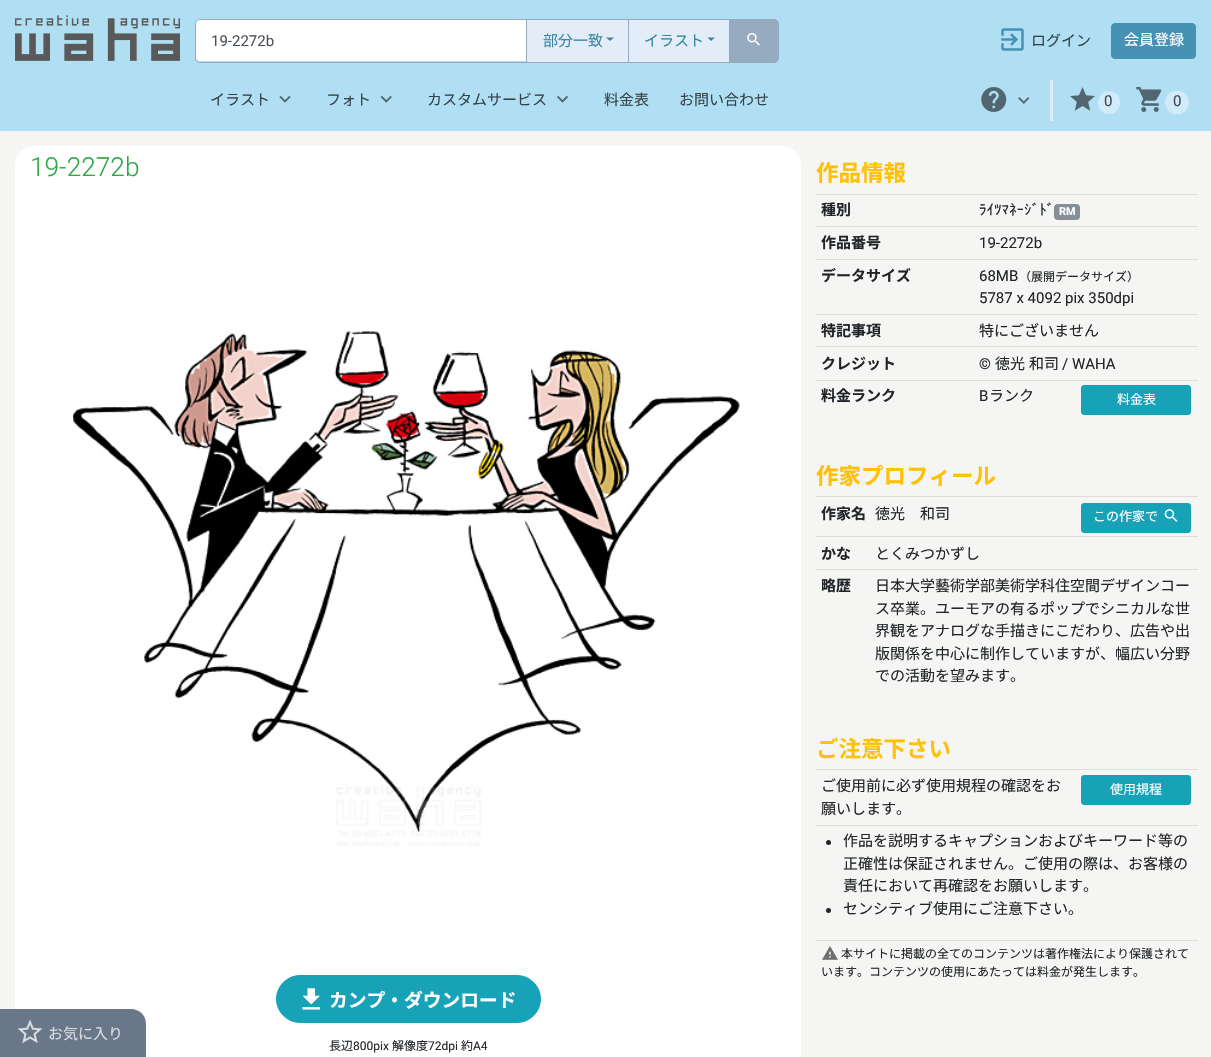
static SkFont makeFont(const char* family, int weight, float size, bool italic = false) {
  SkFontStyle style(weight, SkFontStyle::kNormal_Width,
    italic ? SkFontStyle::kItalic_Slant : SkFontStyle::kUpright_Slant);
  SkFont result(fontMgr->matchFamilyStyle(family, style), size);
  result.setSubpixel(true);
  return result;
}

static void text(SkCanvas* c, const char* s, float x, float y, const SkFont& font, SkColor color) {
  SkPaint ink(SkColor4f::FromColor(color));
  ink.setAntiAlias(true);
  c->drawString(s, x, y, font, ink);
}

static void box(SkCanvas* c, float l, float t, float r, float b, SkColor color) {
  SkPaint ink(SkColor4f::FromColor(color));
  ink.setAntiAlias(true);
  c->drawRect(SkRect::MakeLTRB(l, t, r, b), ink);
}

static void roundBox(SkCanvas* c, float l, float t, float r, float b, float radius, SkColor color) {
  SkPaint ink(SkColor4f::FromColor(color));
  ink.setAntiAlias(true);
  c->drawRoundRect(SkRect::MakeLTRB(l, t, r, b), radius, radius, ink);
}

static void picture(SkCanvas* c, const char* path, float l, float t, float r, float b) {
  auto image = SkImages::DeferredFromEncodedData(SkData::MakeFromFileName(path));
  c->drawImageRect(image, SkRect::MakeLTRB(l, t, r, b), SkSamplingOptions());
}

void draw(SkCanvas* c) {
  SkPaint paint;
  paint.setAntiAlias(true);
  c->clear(0xfff5f5f3);
  box(c, 0, 0, 1211, 131, 0xffb0dff3);
  picture(c, "img_01.png", 15, 15, 180, 61);
  paint.setColor(0xffffffff);
  c->drawPath(SkPathBuilder().moveTo(199, 20).lineTo(526, 20).lineTo(526, 61).lineTo(199, 61).cubicTo(197.5f, 61, 196, 59.5f, 196, 58).lineTo(196, 23).cubicTo(196, 21.5f, 197.5f, 20, 199, 20).close().detach(), paint);
  paint.setStyle(SkPaint::kStroke_Style);
  paint.setStrokeWidth(1);
  paint.setColor(0xff96abc0);
  c->drawPath(SkPathBuilder().moveTo(200, 19.5f).lineTo(527.5f, 19.5f).lineTo(527.5f, 62.5f).lineTo(200, 62.5f).cubicTo(197.5f, 62.5f, 195.5f, 60.5f, 195.5f, 58).lineTo(195.5f, 24).cubicTo(195.5f, 21.5f, 197.5f, 19.5f, 200, 19.5f).close().detach(), paint);
  SkFont face1 = makeFont("Roboto", 400, 15);
  text(c, "19-2272b", 211, 46, face1, 0xff495057);
  box(c, 527, 20, 628, 62, 0xffe3edf7);
  c->drawRect(SkRect::MakeLTRB(526.5f, 19.5f, 629.5f, 62.5f), paint);
  SkFont face2 = makeFont("Noto Sans JP", 400, 15);
  text(c, "部分一致", 543, 46, face2, 0xff3885a6);
  paint.setStyle(SkPaint::kFill_Style);
  paint.setColor(0xff3885a6);
  c->drawPath(SkPathBuilder().moveTo(606, 37.5f).lineTo(614, 37.5f).lineTo(610, 41).close().detach(), paint);
  box(c, 629, 20, 729, 62, 0xffe3edf7);
  paint.setStyle(SkPaint::kStroke_Style);
  paint.setColor(0xff96abc0);
  c->drawRect(SkRect::MakeLTRB(628.5f, 19.5f, 730.5f, 62.5f), paint);
  text(c, "イラスト", 644, 46, face2, 0xff3885a6);
  paint.setStyle(SkPaint::kFill_Style);
  paint.setColor(0xff3885a6);
  c->drawPath(SkPathBuilder().moveTo(707.5f, 37.5f).lineTo(715, 37.5f).lineTo(711, 41).close().detach(), paint);
  paint.setColor(0xff96abc0);
  c->drawPath(SkPathBuilder().moveTo(729.5f, 19.5f).lineTo(774, 19.5f).cubicTo(776.5f, 19.5f, 778.5f, 21.5f, 778.5f, 24).lineTo(778.5f, 58).cubicTo(778.5f, 60.5f, 776.5f, 62.5f, 774, 62.5f).lineTo(729.5f, 62.5f).close().detach(), paint);
  paint.setStyle(SkPaint::kStroke_Style);
  c->drawPath(SkPathBuilder().moveTo(729.5f, 19.5f).lineTo(774, 19.5f).cubicTo(776.5f, 19.5f, 778.5f, 21.5f, 778.5f, 24).lineTo(778.5f, 58).cubicTo(778.5f, 60.5f, 776.5f, 62.5f, 774, 62.5f).lineTo(729.5f, 62.5f).close().detach(), paint);
  picture(c, "img_02.png", 747, 33, 760, 46);
  picture(c, "img_03.png", 1001, 28, 1024, 51);
  text(c, "ログイン", 1031, 46, face2, 0xff354349);
  paint.setStyle(SkPaint::kFill_Style);
  paint.setColor(0xff4692b4);
  c->drawRoundRect(SkRect::MakeLTRB(1111.5f, 23.5f, 1195.5f, 58.5f), 3.5f, 3.5f, paint);
  paint.setStyle(SkPaint::kStroke_Style);
  c->drawRoundRect(SkRect::MakeLTRB(1111.5f, 23.5f, 1195.5f, 58.5f), 3.5f, 3.5f, paint);
  text(c, "会員登録", 1124, 45, face2, 0xffffffff);
  text(c, "イラスト", 210, 105, face2, 0xff354349);
  picture(c, "img_04.png", 279, 95, 291, 103);
  text(c, "フォト", 326, 105, face2, 0xff354349);
  picture(c, "img_05.png", 380, 95, 392, 103);
  text(c, "カスタムサービス", 427, 105, face2, 0xff354349);
  picture(c, "img_06.png", 557, 95, 568, 103);
  text(c, "料金表", 604, 105, face2, 0xff354349);
  text(c, "お問い合わせ", 679, 105, face2, 0xff354349);
  box(c, 1050, 80, 1053, 121, 0xffd8eff9);
  picture(c, "img_07.png", 981, 87, 1007, 112);
  picture(c, "img_08.png", 1018, 97, 1030, 104);
  picture(c, "img_09.png", 1070, 87, 1095, 111);
  roundBox(c, 1098, 91, 1120, 114, 11, 0xffd1ebfa);
  text(c, "0", 1104, 106, face1, 0xff3f474b);
  picture(c, "img_10.png", 1136, 87, 1162, 112);
  roundBox(c, 1165, 91, 1189, 114, 11.5f, 0xffd1ebfa);
  text(c, "0", 1173, 106, face1, 0xff3f474b);
  paint.setStyle(SkPaint::kFill_Style);
  paint.setColor(0xffffffff);
  c->drawPath(SkPathBuilder().moveTo(34, 146).lineTo(782, 146).cubicTo(792.5f, 146, 801, 154.5f, 801, 165).lineTo(801, 190).lineTo(15, 190).lineTo(15, 165).cubicTo(15, 154.5f, 23.5f, 146, 34, 146).close().detach(), paint);
  SkFont face3 = makeFont("Roboto", 300, 26.25f);
  text(c, "19-2272b", 30, 176, face3, 0xff28a745);
  box(c, 15, 190, 801, 1057, 0xffffffff);
  picture(c, "img_11.png", 72, 331, 740, 847);
  paint.setColor(0xff17a2b8);
  c->drawRoundRect(SkRect::MakeLTRB(276.5f, 975.5f, 540.5f, 1022.5f), 23.5f, 23.5f, paint);
  paint.setStyle(SkPaint::kStroke_Style);
  c->drawRoundRect(SkRect::MakeLTRB(276.5f, 975.5f, 540.5f, 1022.5f), 23.5f, 23.5f, paint);
  picture(c, "img_12.png", 302, 988, 320, 1010);
  SkFont face4 = makeFont("Noto Sans JP", 700, 18.75f);
  text(c, "カンプ・ダウンロード", 329, 1007, face4, 0xffffffff);
  SkFont face5 = makeFont("Noto Sans JP", 400, 12);
  text(c, "長辺", 329, 1050, face5, 0xff212529);
  SkFont face6 = makeFont("Roboto", 400, 12);
  text(c, "800pix", 353, 1050, face6, 0xff212529);
  text(c, "解像度", 392, 1050, face5, 0xff212529);
  text(c, "72dpi", 428, 1050, face6, 0xff212529);
  text(c, "約", 461, 1050, face5, 0xff212529);
  text(c, "A4", 473, 1050, face6, 0xff212529);
  SkFont face7 = makeFont("Noto Sans JP", 700, 22.5f);
  text(c, "作品情報", 816, 181, face7, 0xffffc107);
  SkFont face8 = makeFont("Noto Sans JP", 700, 15);
  text(c, "種別", 821, 215, face8, 0xff212529);
  box(c, 816, 194, 1198, 195, 0xffdfdcd9);
  SkFont face9 = makeFont("IPAGothic", 400, 15);
  text(c, "ﾗｲﾂﾏﾈｰｼﾞﾄﾞ", 979, 215, face9, 0xff212529);
  roundBox(c, 1054, 204, 1080, 220, 4, 0xff868e96);
  SkFont face10 = makeFont("Roboto", 700, 11);
  text(c, "RM", 1059, 215, face10, 0xffffffff);
  text(c, "作品番号", 821, 248, face8, 0xff212529);
  box(c, 816, 226, 1198, 227, 0xffdfdcd9);
  text(c, "19-2272b", 979, 248, face1, 0xff212529);
  text(c, "データサイズ", 821, 281, face8, 0xff212529);
  box(c, 816, 259, 1198, 260, 0xffdfdcd9);
  text(c, "68MB", 979, 281, face1, 0xff212529);
  text(c, "（展開データサイズ）", 1019, 281, face5, 0xff212529);
  text(c, "5787 x 4092 pix 350dpi", 979, 303, face1, 0xff212529);
  text(c, "特記事項", 821, 336, face8, 0xff212529);
  box(c, 816, 314, 1198, 315, 0xffdfdcd9);
  text(c, "特にございません", 979, 336, face2, 0xff212529);
  text(c, "クレジット", 821, 369, face8, 0xff212529);
  box(c, 816, 346, 1198, 347, 0xffdfdcd9);
  text(c, "©", 979, 369, face1, 0xff212529);
  text(c, "徳光", 995, 369, face2, 0xff212529);
  text(c, "和司", 1029, 369, face2, 0xff212529);
  text(c, "/ WAHA", 1062, 369, face1, 0xff212529);
  text(c, "料金ランク", 821, 401, face8, 0xff212529);
  text(c, "B", 979, 401, face1, 0xff212529);
  text(c, "ランク", 989, 401, face2, 0xff212529);
  box(c, 816, 380, 1198, 381, 0xffdfdcd9);
  paint.setStyle(SkPaint::kFill_Style);
  c->drawRoundRect(SkRect::MakeLTRB(1081.5f, 385.5f, 1190.5f, 414.5f), 2.5f, 2.5f, paint);
  paint.setStyle(SkPaint::kStroke_Style);
  c->drawRoundRect(SkRect::MakeLTRB(1081.5f, 385.5f, 1190.5f, 414.5f), 2.5f, 2.5f, paint);
  SkFont face11 = makeFont("Noto Sans JP", 400, 13);
  text(c, "料金表", 1117, 404, face11, 0xffffffff);
  text(c, "作家プロフィール", 816, 484, face7, 0xffffc107);
  text(c, "作家名", 821, 519, face8, 0xff212529);
  text(c, "徳光　和司", 875, 519, face2, 0xff212529);
  box(c, 816, 496, 1198, 497, 0xffdfdcd9);
  paint.setStyle(SkPaint::kFill_Style);
  c->drawRoundRect(SkRect::MakeLTRB(1081.5f, 503.5f, 1190.5f, 532.5f), 2.5f, 2.5f, paint);
  paint.setStyle(SkPaint::kStroke_Style);
  c->drawRoundRect(SkRect::MakeLTRB(1081.5f, 503.5f, 1190.5f, 532.5f), 2.5f, 2.5f, paint);
  text(c, "この作家で", 1093, 521, face11, 0xffffffff);
  picture(c, "img_13.png", 1164, 509, 1178, 522);
  text(c, "かな", 821, 559, face8, 0xff212529);
  box(c, 816, 536, 1198, 537, 0xffdfdcd9);
  text(c, "とくみつかずし", 875, 559, face2, 0xff212529);
  text(c, "略歴", 821, 591, face8, 0xff212529);
  box(c, 816, 569, 1198, 570, 0xffdfdcd9);
  text(c, "日本大学藝術学部美術学科住空間デザインコー", 875, 591, face2, 0xff212529);
  text(c, "ス卒業。ユーモアの有るポップでシニカルな世", 875, 614, face2, 0xff212529);
  text(c, "界観をアナログな手描きにこだわり、広告や出", 875, 636, face2, 0xff212529);
  text(c, "版関係を中心に制作していますが、幅広い分野", 875, 659, face2, 0xff212529);
  text(c, "での活動を望みます。", 875, 681, face2, 0xff212529);
  text(c, "ご注意下さい", 816, 757, face7, 0xffffc107);
  text(c, "ご使用前に必ず使用規程の確認をお", 821, 791, face2, 0xff212529);
  text(c, "願いします。", 821, 814, face2, 0xff212529);
  box(c, 816, 769, 1198, 770, 0xffdfdcd9);
  paint.setStyle(SkPaint::kFill_Style);
  c->drawRoundRect(SkRect::MakeLTRB(1081.5f, 775.5f, 1190.5f, 804.5f), 2.5f, 2.5f, paint);
  paint.setStyle(SkPaint::kStroke_Style);
  c->drawRoundRect(SkRect::MakeLTRB(1081.5f, 775.5f, 1190.5f, 804.5f), 2.5f, 2.5f, paint);
  text(c, "使用規程", 1110, 794, face11, 0xffffffff);
  box(c, 816, 825, 1198, 826, 0xffdfdcd9);
  paint.setStyle(SkPaint::kFill_Style);
  paint.setColor(0xff212529);
  c->drawCircle(828.5f, 842.5f, 2.5f, paint);
  text(c, "作品を説明するキャプションおよびキーワード等の", 843, 846, face2, 0xff212529);
  text(c, "正確性は保証されません。ご使用の際は、お客様の", 843, 869, face2, 0xff212529);
  text(c, "責任において再確認をお願いします。", 843, 891, face2, 0xff212529);
  c->drawCircle(828.5f, 910.5f, 2.5f, paint);
  text(c, "センシティブ使用にご注意下さい。", 843, 914, face2, 0xff212529);
  box(c, 816, 940, 1198, 941, 0xffdfdcd9);
  picture(c, "img_14.png", 822, 946, 838, 960);
  text(c, "本サイトに掲載の全てのコンテンツは著作権法により保護されて", 841, 958, face5, 0xff212529);
  text(c, "います。コンテンツの使用にあたっては料金が発生します。", 821, 976, face5, 0xff212529);
  paint.setColor(0xff6a7789);
  c->drawPath(SkPathBuilder().moveTo(0, 1009).lineTo(131, 1009).cubicTo(139.5f, 1009, 146, 1015.5f, 146, 1024).lineTo(146, 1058).lineTo(0, 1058).close().detach(), paint);
  picture(c, "img_15.png", 17, 1019, 43, 1044);
  text(c, "お気に入り", 48, 1039, face2, 0xffdadde2);
}
